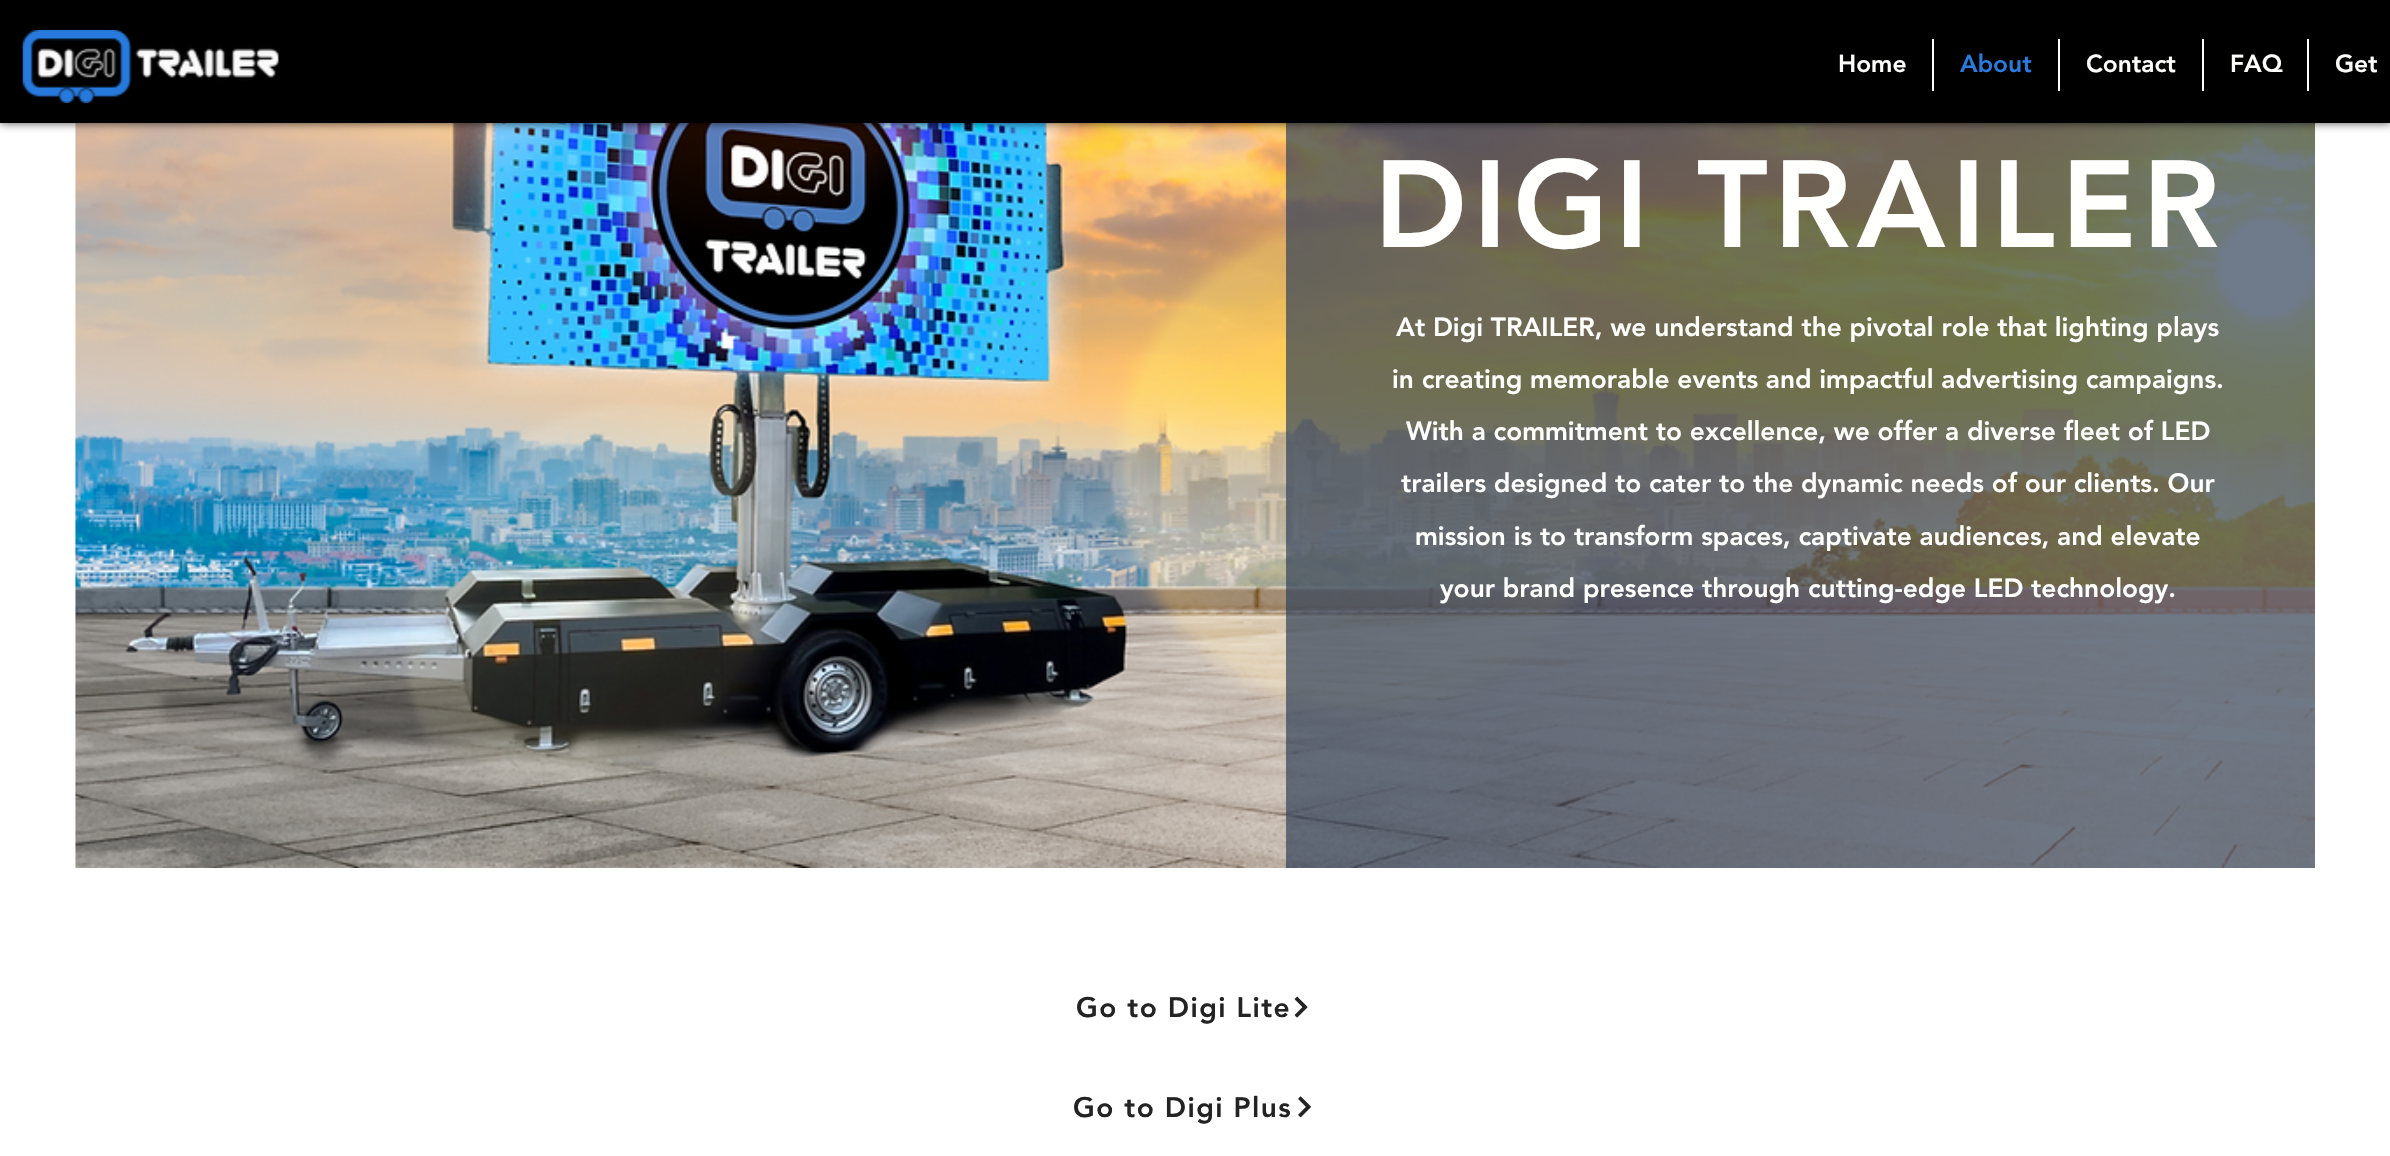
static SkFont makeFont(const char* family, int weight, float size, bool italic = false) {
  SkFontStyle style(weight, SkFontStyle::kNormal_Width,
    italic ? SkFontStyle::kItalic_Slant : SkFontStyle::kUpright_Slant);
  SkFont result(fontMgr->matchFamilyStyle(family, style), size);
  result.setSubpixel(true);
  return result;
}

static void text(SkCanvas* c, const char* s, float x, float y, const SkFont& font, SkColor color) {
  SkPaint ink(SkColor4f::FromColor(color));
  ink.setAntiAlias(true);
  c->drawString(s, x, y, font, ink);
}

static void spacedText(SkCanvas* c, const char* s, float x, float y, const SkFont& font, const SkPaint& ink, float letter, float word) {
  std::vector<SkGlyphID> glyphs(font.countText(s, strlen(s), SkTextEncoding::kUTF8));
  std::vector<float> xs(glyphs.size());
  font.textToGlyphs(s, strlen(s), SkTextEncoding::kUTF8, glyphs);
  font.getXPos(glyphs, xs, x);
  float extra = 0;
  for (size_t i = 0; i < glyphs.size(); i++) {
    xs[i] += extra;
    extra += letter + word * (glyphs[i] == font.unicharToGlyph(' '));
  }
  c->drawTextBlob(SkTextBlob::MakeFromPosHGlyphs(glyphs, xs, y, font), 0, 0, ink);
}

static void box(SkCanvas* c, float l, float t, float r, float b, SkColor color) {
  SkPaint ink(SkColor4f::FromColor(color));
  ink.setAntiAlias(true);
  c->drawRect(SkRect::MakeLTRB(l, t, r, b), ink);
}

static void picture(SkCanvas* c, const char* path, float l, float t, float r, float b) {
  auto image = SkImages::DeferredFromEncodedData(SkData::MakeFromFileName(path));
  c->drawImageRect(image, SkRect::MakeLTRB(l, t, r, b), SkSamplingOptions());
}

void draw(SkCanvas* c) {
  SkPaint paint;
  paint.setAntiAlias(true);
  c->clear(0xffffffff);
  picture(c, "img_02.png", 75, 123, 2316, 868);
  box(c, 1286, 123, 2315, 868, 0xb3324158);
  paint.setColor(0xb3000000);
  paint.setMaskFilter(SkMaskFilter::MakeBlur(kNormal_SkBlurStyle, 4.5f));
  c->drawRect(SkRect::MakeLTRB(0, 0, 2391, 123), paint);
  paint.setMaskFilter(nullptr);
  box(c, 0, 0, 2390, 123, 0xff000000);
  picture(c, "img_01.png", 22, 29, 279, 104);
  SkFont face1 = makeFont("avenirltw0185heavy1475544", 900, 24.5f);
  text(c, "Home", 1838, 72, face1, 0xfffffffe);
  box(c, 1932, 39, 1934, 91, 0xffffffff);
  text(c, "About", 1960, 72, face1, 0xff287cdf);
  box(c, 2058, 39, 2060, 91, 0xffffffff);
  text(c, "Contact", 2086, 72, face1, 0xfffffffe);
  box(c, 2202, 39, 2204, 91, 0xffffffff);
  text(c, "FAQ", 2230, 72, face1, 0xfffffffe);
  box(c, 2307, 39, 2309, 91, 0xffffffff);
  text(c, "Get", 2335, 72, face1, 0xfffffffe);
  SkFont face2 = makeFont("avenirltw0185heavy1475544", 900, 122.5f);
  paint.setColor(0xfffffffe);
  spacedText(c, "DIGI TRAILER", 1374, 247, face2, paint, 6.1f, 0);
  SkFont face3 = makeFont("avenirltw0185heavy1475544", 900, 26.25f);
  text(c, "At Digi TRAILER, we understand the pivotal role that lighting plays", 1396, 336, face3, 0xfffffffe);
  text(c, "in creating memorable events and impactful advertising campaigns.", 1392, 388, face3, 0xfffffffe);
  text(c, "With a commitment to excellence, we offer a diverse fleet of LED", 1406, 440, face3, 0xfffffffe);
  text(c, "trailers designed to cater to the dynamic needs of our clients. Our", 1401, 492, face3, 0xfffffffe);
  text(c, "mission is to transform spaces, captivate audiences, and elevate", 1415, 545, face3, 0xfffffffe);
  text(c, "your brand presence through cutting-edge LED technology.", 1440, 597, face3, 0xfffffffe);
  SkFont face4 = makeFont("avenirltw0185heavy1475544", 900, 28);
  paint.setColor(0xff242323);
  spacedText(c, "Go to Digi Lite", 1076, 1017, face4, paint, 1.4f, 0);
  picture(c, "img_03.png", 1294, 996, 1308, 1018);
  spacedText(c, "Go to Digi Plus", 1073, 1117, face4, paint, 1.4f, 0);
  picture(c, "img_04.png", 1298, 1096, 1311, 1118);
}
